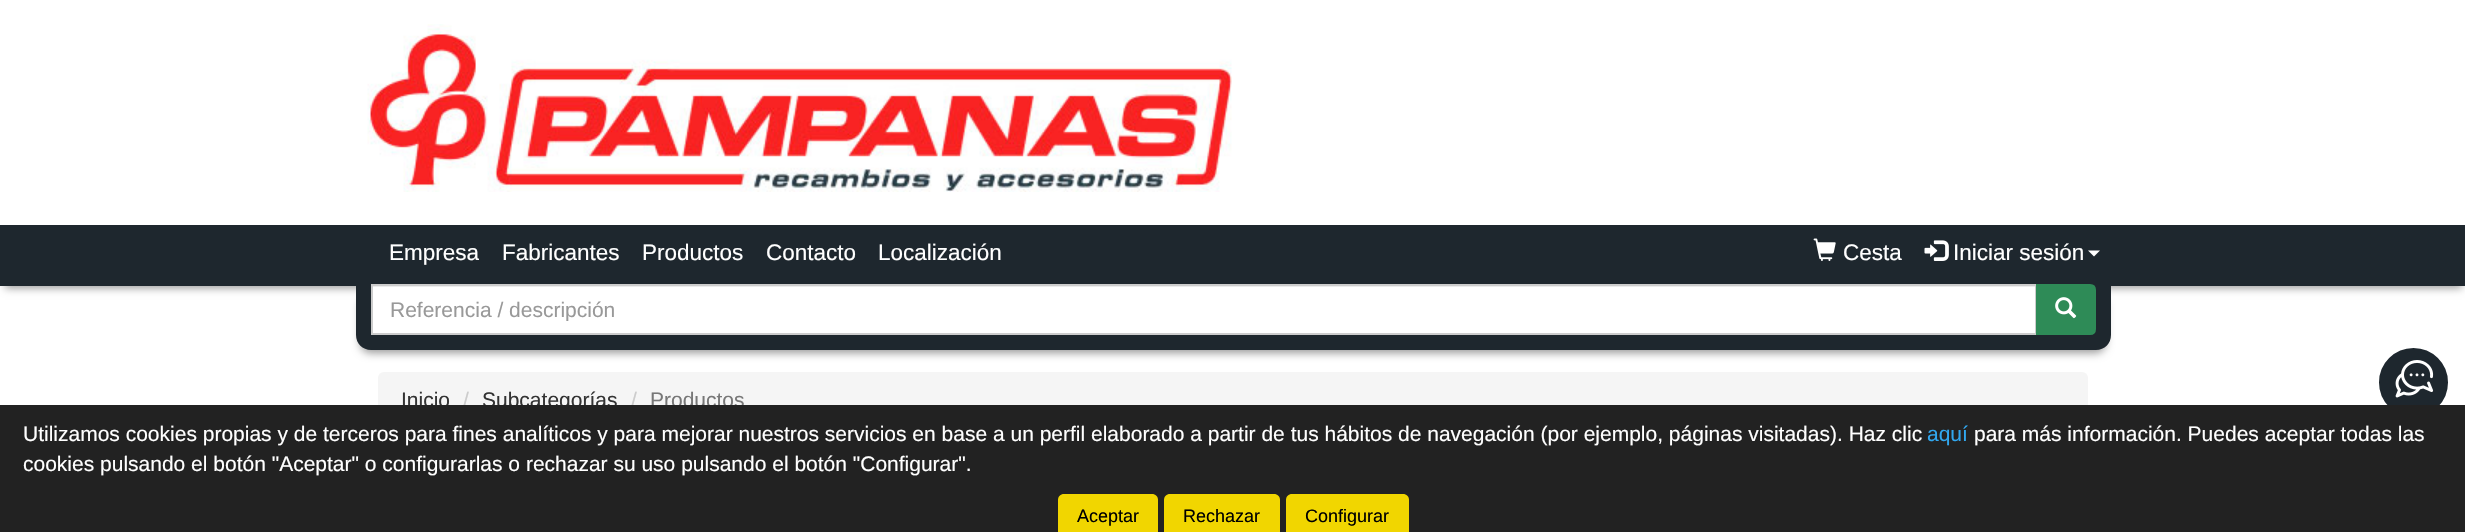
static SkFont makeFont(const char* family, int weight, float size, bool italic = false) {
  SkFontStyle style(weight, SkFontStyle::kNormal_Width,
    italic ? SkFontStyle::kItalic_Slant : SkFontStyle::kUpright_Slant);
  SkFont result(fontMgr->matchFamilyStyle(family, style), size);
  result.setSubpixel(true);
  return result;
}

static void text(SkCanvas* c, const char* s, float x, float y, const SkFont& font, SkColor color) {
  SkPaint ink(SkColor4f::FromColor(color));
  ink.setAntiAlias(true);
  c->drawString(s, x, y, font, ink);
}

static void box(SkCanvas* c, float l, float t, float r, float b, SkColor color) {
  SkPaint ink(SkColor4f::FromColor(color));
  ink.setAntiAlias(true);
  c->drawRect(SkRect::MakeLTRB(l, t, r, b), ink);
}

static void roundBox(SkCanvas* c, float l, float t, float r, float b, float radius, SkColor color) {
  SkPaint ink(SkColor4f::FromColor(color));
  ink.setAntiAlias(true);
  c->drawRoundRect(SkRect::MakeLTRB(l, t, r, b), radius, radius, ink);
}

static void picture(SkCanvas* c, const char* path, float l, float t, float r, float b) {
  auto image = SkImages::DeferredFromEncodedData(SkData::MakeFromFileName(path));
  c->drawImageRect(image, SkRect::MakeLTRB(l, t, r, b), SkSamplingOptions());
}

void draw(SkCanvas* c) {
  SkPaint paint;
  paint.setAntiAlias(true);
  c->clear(0xffffffff);
  picture(c, "img_01.png", 367, 24, 1232, 192);
  paint.setColor(0x66000000);
  paint.setMaskFilter(SkMaskFilter::MakeBlur(kNormal_SkBlurStyle, 4));
  c->drawRect(SkRect::MakeLTRB(5, 237, 2462, 288), paint);
  paint.setMaskFilter(nullptr);
  box(c, 0, 225, 2465, 286, 0xff1e272e);
  SkFont face1 = makeFont("Liberation Sans", 400, 22.5f);
  text(c, "Empresa", 389, 260, face1, 0xffffffff);
  text(c, "Fabricantes", 502, 260, face1, 0xffffffff);
  text(c, "Productos", 642, 260, face1, 0xffffffff);
  text(c, "Contacto", 766, 260, face1, 0xffffffff);
  text(c, "Localización", 878, 260, face1, 0xffffffff);
  picture(c, "img_02.png", 1813, 238, 1836, 261);
  text(c, "Cesta", 1843, 260, face1, 0xffffffff);
  picture(c, "img_03.png", 1924, 240, 1949, 261);
  text(c, "Iniciar sesión", 1953, 260, face1, 0xffffffff);
  paint.setColor(0xffffffff);
  c->drawPath(SkPathBuilder().moveTo(2088, 250.5f).lineTo(2100, 250.5f).lineTo(2094, 256.5f).close().detach(), paint);
  paint.setColor(0x66000000);
  paint.setMaskFilter(SkMaskFilter::MakeBlur(kNormal_SkBlurStyle, 4));
  c->drawRoundRect(SkRect::MakeLTRB(360, 296, 2106, 353), 11, 11, paint);
  paint.setMaskFilter(nullptr);
  paint.setColor(0xff1e272e);
  c->drawPath(SkPathBuilder().moveTo(356, 284).lineTo(2111, 284).lineTo(2111, 335).cubicTo(2111, 343.5f, 2104.5f, 350, 2096, 350).lineTo(371, 350).cubicTo(362.5f, 350, 356, 343.5f, 356, 335).close().detach(), paint);
  box(c, 373, 287, 2035, 333, 0xffffffff);
  box(c, 372, 286, 2036, 287, 0xffececec);
  paint.setStyle(SkPaint::kStroke_Style);
  paint.setStrokeWidth(2);
  paint.setColor(0xffcccccc);
  c->drawRect(SkRect::MakeLTRB(372, 285, 2036, 334), paint);
  c->save();
  c->clipRect(SkRect::MakeLTRB(390, 297, 2018, 321));
  SkFont face2 = makeFont("Liberation Sans", 400, 21);
  text(c, "Referencia / descripción", 390, 317, face2, 0xff999999);
  c->restore();
  paint.setStyle(SkPaint::kFill_Style);
  paint.setColor(0xff2e8b57);
  c->drawPath(SkPathBuilder().moveTo(2037, 285).lineTo(2090, 285).cubicTo(2093, 285, 2095, 287, 2095, 290).lineTo(2095, 329).cubicTo(2095, 332, 2093, 334, 2090, 334).lineTo(2037, 334).close().detach(), paint);
  paint.setStyle(SkPaint::kStroke_Style);
  c->drawPath(SkPathBuilder().moveTo(2037, 285).lineTo(2090, 285).cubicTo(2093, 285, 2095, 287, 2095, 290).lineTo(2095, 329).cubicTo(2095, 332, 2093, 334, 2090, 334).lineTo(2037, 334).close().detach(), paint);
  picture(c, "img_04.png", 2055, 297, 2077, 319);
  roundBox(c, 378, 372, 2088, 426, 6, 0xfff5f5f5);
  text(c, "Inicio", 401, 407, face2, 0xff333333);
  text(c, "/", 463, 407, face2, 0xffcccccc);
  text(c, "Subcategorías", 482, 407, face2, 0xff333333);
  text(c, "/", 631, 407, face2, 0xffcccccc);
  text(c, "Productos", 650, 407, face2, 0xff777777);
  paint.setStyle(SkPaint::kFill_Style);
  paint.setColor(0xff1e272e);
  c->drawCircle(2413.5f, 382.5f, 36, paint);
  paint.setStyle(SkPaint::kStroke_Style);
  paint.setStrokeWidth(3);
  paint.setColor(0xffffffff);
  c->drawCircle(2413.5f, 382.5f, 36, paint);
  picture(c, "img_05.png", 2395, 360, 2434, 398);
  box(c, 0, 405, 2465, 532, 0xff222222);
  text(c, "Utilizamos cookies propias y de terceros para fines analíticos y para mejorar nuestros servicios en base a un perfil elaborado a partir de tus hábitos de navegación (por ejemplo, páginas visitadas). Haz clic", 23, 441, face2, 0xffffffff);
  text(c, "aquí", 1927, 441, face2, 0xff31a8f0);
  text(c, "para más información. Puedes aceptar todas las", 1974, 441, face2, 0xffffffff);
  text(c, "cookies pulsando el botón \"Aceptar\" o configurarlas o rechazar su uso pulsando el botón \"Configurar\".", 23, 471, face2, 0xffffffff);
  paint.setStyle(SkPaint::kFill_Style);
  paint.setColor(0xfff1d600);
  c->drawPath(SkPathBuilder().moveTo(1064, 494).lineTo(1152, 494).cubicTo(1155.5f, 494, 1158, 496.5f, 1158, 500).lineTo(1158, 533).lineTo(1058, 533).lineTo(1058, 500).cubicTo(1058, 496.5f, 1060.5f, 494, 1064, 494).close().detach(), paint);
  SkFont face3 = makeFont("Liberation Sans", 400, 18);
  text(c, "Aceptar", 1077, 522, face3, 0xff000000);
  c->drawPath(SkPathBuilder().moveTo(1170, 494).lineTo(1274, 494).cubicTo(1277.5f, 494, 1280, 496.5f, 1280, 500).lineTo(1280, 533).lineTo(1164, 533).lineTo(1164, 500).cubicTo(1164, 496.5f, 1166.5f, 494, 1170, 494).close().detach(), paint);
  text(c, "Rechazar", 1183, 522, face3, 0xff000000);
  c->drawPath(SkPathBuilder().moveTo(1292, 494).lineTo(1403, 494).cubicTo(1406.5f, 494, 1409, 496.5f, 1409, 500).lineTo(1409, 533).lineTo(1286, 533).lineTo(1286, 500).cubicTo(1286, 496.5f, 1288.5f, 494, 1292, 494).close().detach(), paint);
  text(c, "Configurar", 1305, 522, face3, 0xff000000);
}
